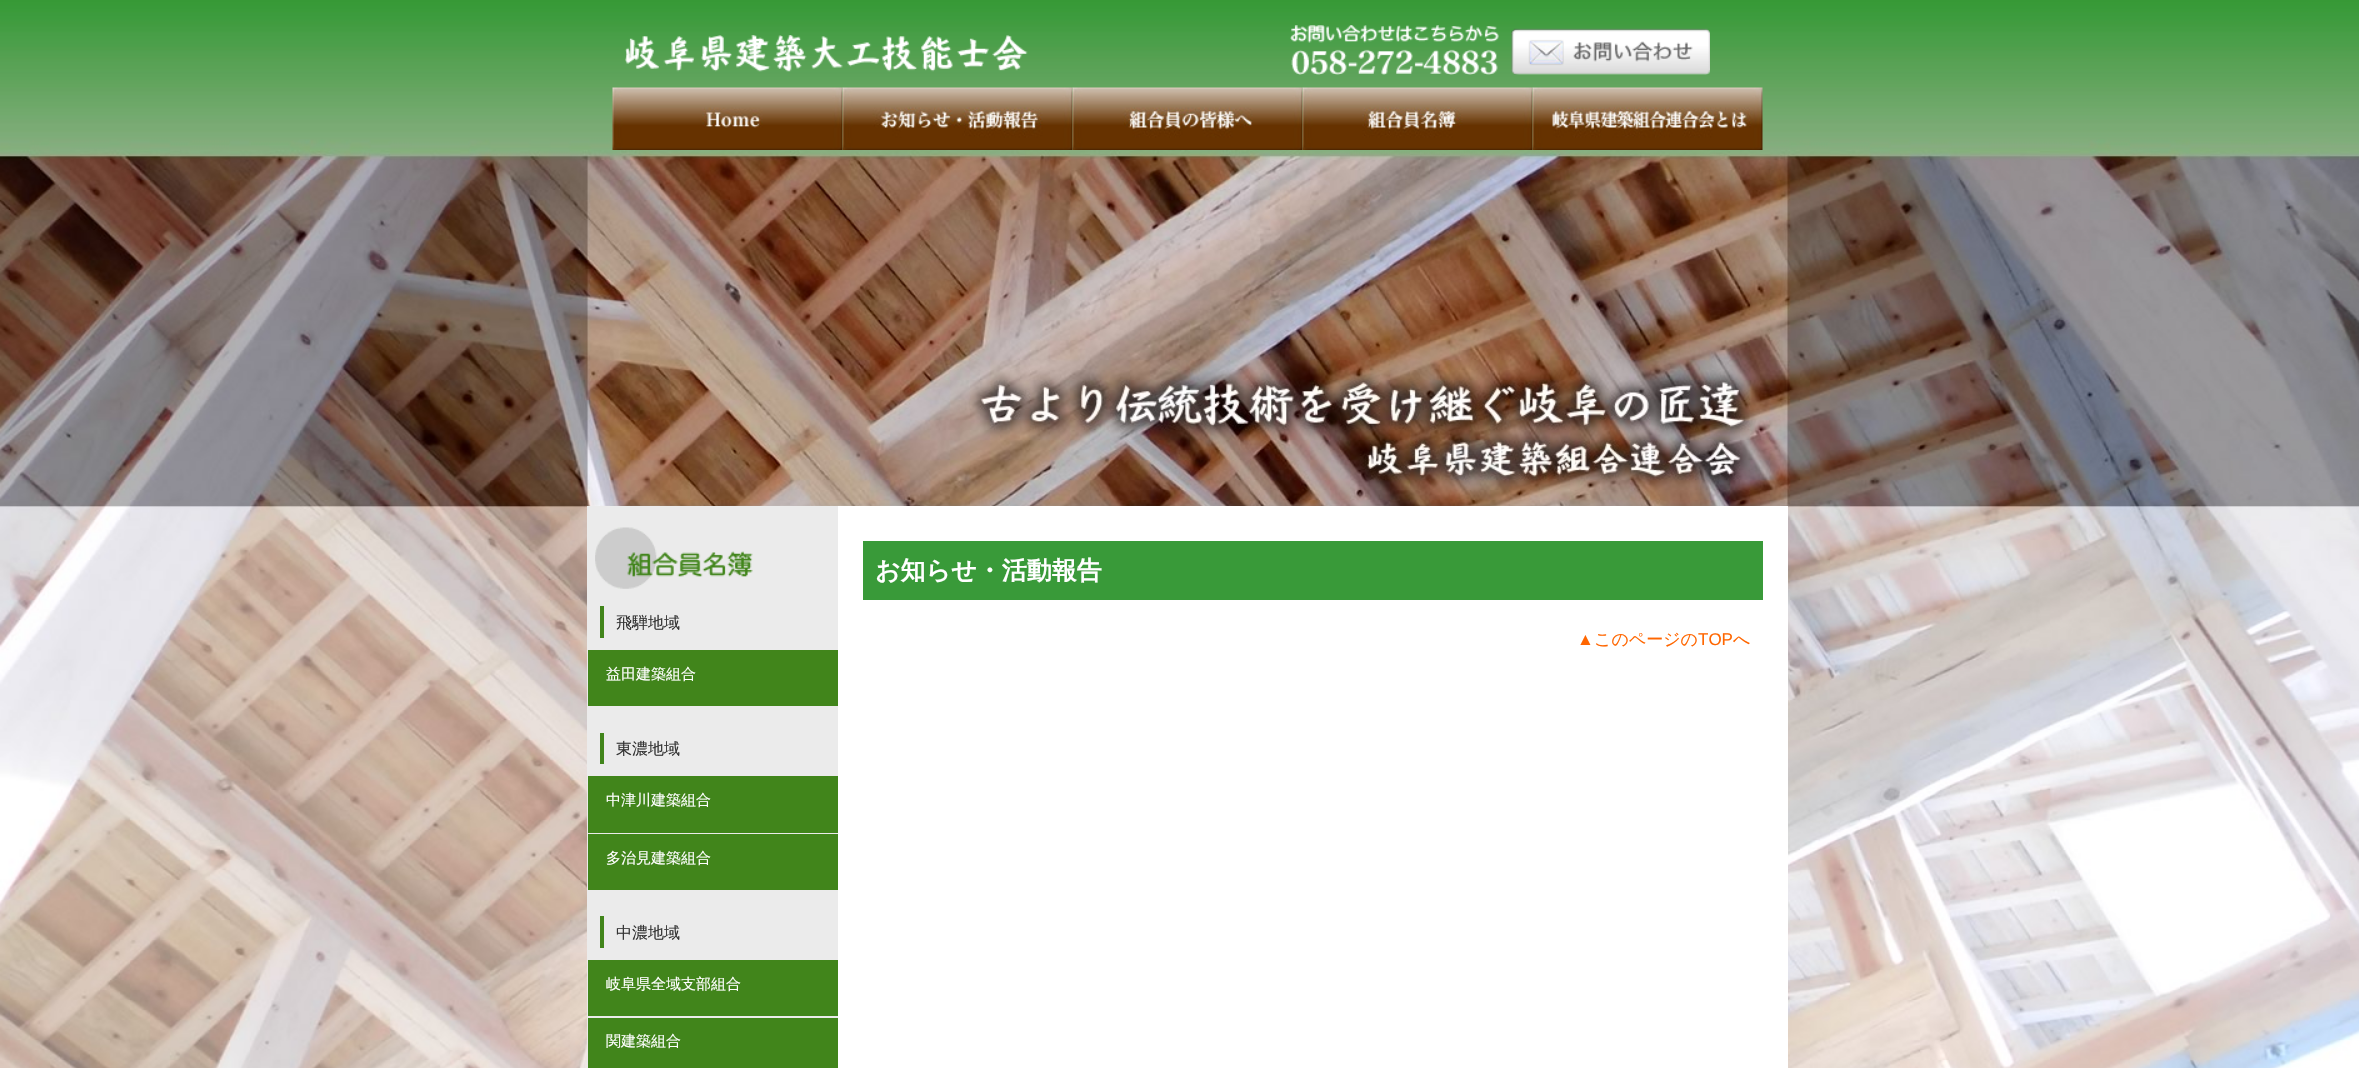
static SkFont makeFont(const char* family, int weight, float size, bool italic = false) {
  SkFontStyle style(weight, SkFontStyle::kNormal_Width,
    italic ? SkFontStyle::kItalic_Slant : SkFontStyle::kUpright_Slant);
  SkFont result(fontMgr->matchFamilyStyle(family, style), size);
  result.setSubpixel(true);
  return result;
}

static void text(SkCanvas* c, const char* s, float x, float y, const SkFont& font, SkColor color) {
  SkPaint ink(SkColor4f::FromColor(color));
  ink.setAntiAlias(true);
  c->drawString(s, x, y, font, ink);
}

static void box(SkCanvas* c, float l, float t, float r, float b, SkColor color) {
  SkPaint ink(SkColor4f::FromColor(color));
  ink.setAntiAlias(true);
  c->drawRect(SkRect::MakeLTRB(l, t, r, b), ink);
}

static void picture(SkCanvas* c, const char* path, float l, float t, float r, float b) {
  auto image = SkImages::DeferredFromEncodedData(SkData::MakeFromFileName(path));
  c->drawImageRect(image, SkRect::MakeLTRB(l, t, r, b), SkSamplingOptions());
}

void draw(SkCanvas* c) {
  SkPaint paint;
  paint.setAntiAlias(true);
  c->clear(0xffffffff);
  picture(c, "img_01.png", 0, 0, 2359, 1068);
  picture(c, "img_02.png", 625, 35, 1028, 72);
  picture(c, "img_03.png", 1290, 25, 1499, 75);
  picture(c, "img_04.png", 1511, 28, 1710, 75);
  picture(c, "img_05.png", 612, 87, 843, 150);
  picture(c, "img_06.png", 842, 87, 1073, 150);
  picture(c, "img_07.png", 1072, 87, 1303, 150);
  picture(c, "img_08.png", 1302, 87, 1533, 150);
  picture(c, "img_09.png", 1532, 87, 1763, 150);
  box(c, 838, 506, 1788, 1068, 0xffffffff);
  box(c, 587, 506, 838, 1068, 0xffebebeb);
  box(c, 863, 541, 1763, 600, 0xff399a39);
  SkFont face1 = makeFont("WenQuanYi Zen Hei", 700, 25);
  text(c, "お知らせ・活動報告", 875, 579, face1, 0xffffffff);
  SkFont face2 = makeFont("Liberation Sans", 400, 17);
  text(c, "▲", 1577, 645, face2, 0xffff6600);
  SkFont face3 = makeFont("WenQuanYi Zen Hei", 500, 17);
  text(c, "このページの", 1594, 645, face3, 0xffff6600);
  text(c, "TOP", 1698, 645, face2, 0xffff6600);
  text(c, "へ", 1733, 645, face3, 0xffff6600);
  picture(c, "img_10.png", 595, 527, 753, 589);
  box(c, 600, 606, 604, 638, 0xff41851b);
  SkFont face4 = makeFont("WenQuanYi Zen Hei", 500, 16);
  text(c, "飛騨地域", 616, 628, face4, 0xff333333);
  box(c, 588, 650, 838, 706, 0xff41851b);
  SkFont face5 = makeFont("WenQuanYi Zen Hei", 500, 15);
  text(c, "益田建築組合", 606, 679, face5, 0xffffffff);
  box(c, 600, 733, 604, 764, 0xff41851b);
  text(c, "東濃地域", 616, 754, face4, 0xff333333);
  box(c, 588, 776, 838, 833, 0xff41851b);
  text(c, "中津川建築組合", 606, 805, face5, 0xffffffff);
  box(c, 588, 834, 838, 890, 0xff41851b);
  text(c, "多治見建築組合", 606, 863, face5, 0xffffffff);
  box(c, 600, 916, 604, 948, 0xff41851b);
  text(c, "中濃地域", 616, 938, face4, 0xff333333);
  box(c, 588, 960, 838, 1016, 0xff41851b);
  text(c, "岐阜県全域支部組合", 606, 989, face5, 0xffffffff);
  box(c, 588, 1018, 838, 1068, 0xff41851b);
  text(c, "関建築組合", 606, 1046, face5, 0xffffffff);
}
